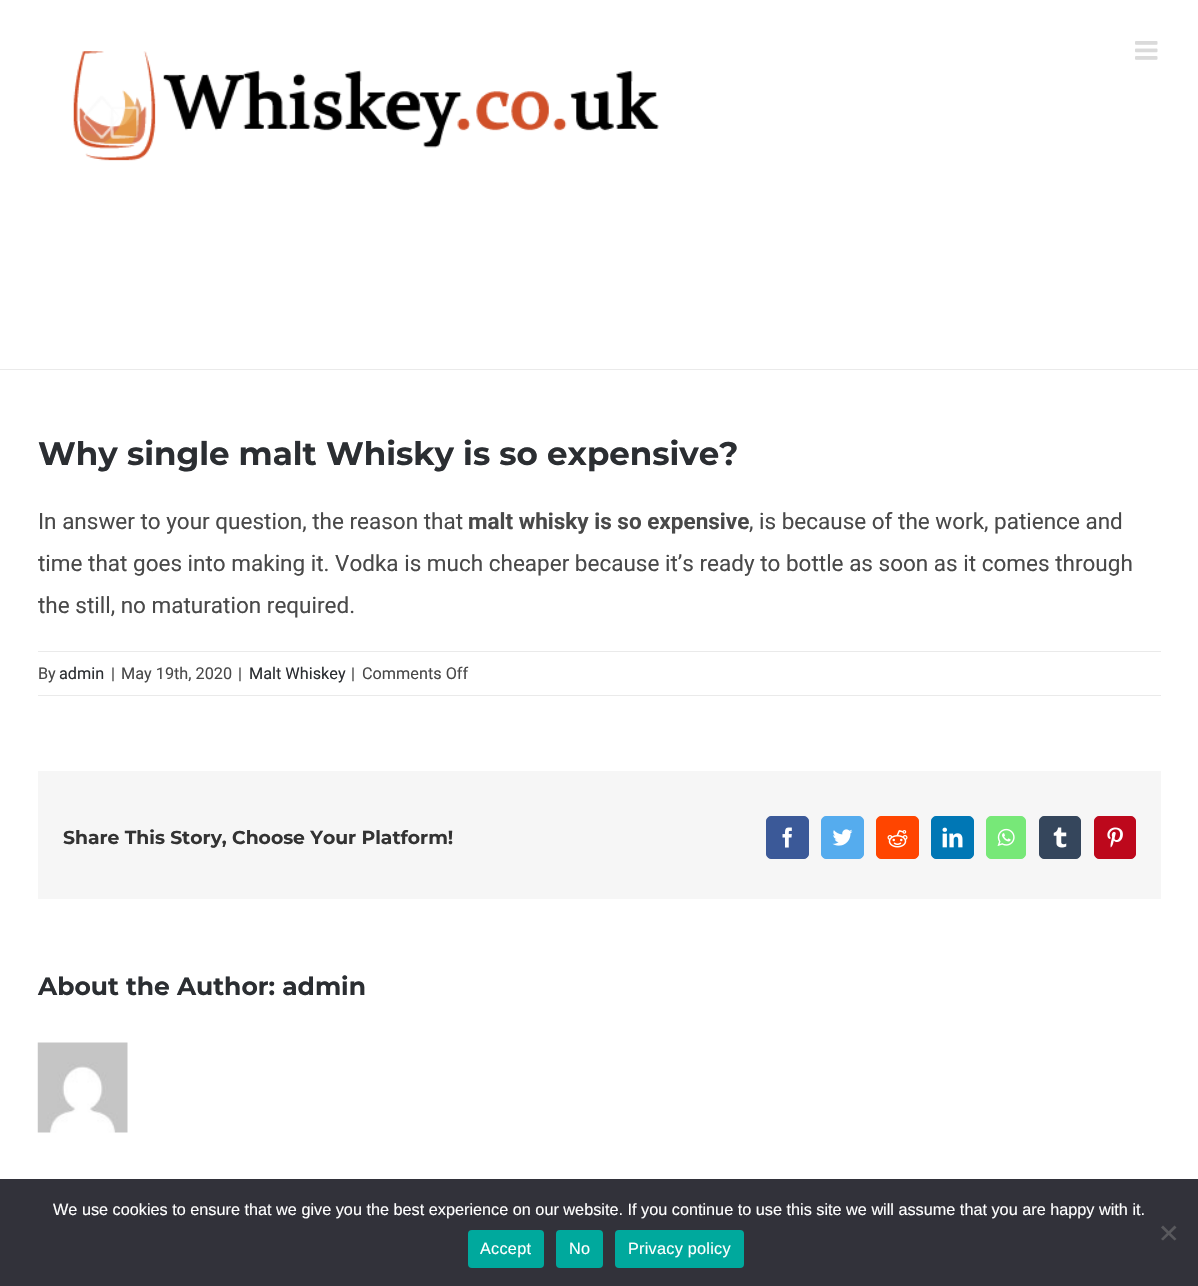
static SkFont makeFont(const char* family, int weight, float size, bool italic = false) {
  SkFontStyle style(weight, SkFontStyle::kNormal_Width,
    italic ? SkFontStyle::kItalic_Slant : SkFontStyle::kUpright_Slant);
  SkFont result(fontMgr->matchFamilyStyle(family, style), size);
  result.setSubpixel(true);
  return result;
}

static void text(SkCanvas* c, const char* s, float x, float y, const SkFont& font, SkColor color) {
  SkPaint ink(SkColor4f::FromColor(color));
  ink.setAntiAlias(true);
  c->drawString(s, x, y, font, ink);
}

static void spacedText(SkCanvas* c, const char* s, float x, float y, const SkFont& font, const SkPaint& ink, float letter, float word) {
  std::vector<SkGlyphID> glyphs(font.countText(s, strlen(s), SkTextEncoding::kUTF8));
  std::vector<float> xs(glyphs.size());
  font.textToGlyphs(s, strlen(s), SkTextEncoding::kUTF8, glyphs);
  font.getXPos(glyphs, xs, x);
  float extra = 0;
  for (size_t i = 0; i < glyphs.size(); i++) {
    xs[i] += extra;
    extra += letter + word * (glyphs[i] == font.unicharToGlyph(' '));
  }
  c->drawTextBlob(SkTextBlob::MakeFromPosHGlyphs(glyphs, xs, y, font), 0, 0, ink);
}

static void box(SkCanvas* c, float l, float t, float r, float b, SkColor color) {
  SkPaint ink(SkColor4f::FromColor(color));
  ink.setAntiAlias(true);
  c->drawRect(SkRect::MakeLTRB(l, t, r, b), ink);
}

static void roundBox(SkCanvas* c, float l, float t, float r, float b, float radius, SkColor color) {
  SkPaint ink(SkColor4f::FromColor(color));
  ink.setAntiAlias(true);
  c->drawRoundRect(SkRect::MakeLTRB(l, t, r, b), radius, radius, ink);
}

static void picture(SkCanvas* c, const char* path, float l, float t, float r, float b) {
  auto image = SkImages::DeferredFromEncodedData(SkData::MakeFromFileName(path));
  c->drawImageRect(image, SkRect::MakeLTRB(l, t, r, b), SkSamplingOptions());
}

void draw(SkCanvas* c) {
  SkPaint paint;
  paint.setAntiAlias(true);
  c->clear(0xffffffff);
  box(c, 0, 369, 1198, 370, 0xffeaeaea);
  picture(c, "img_01.png", 73, 51, 659, 161);
  picture(c, "img_02.png", 1135, 41, 1158, 60);
  SkFont face1 = makeFont("Montserrat", 700, 32.5f);
  text(c, "Why single malt Whisky is so expensive?", 38, 465, face1, 0xff2b2e32);
  SkFont face2 = makeFont("Roboto", 400, 22.5f);
  text(c, "In answer to your question, the reason that", 38, 529, face2, 0xff494949);
  SkFont face3 = makeFont("Roboto", 700, 22.5f);
  text(c, "malt whisky is so expensive", 468, 529, face3, 0xff494949);
  text(c, ", is because of the work, patience and", 749, 529, face2, 0xff494949);
  text(c, "time that goes into making it. Vodka is much cheaper because it’s ready to bottle as soon as it comes through", 38, 571, face2, 0xff494949);
  text(c, "the still, no maturation required.", 38, 613, face2, 0xff494949);
  box(c, 38, 651, 1161, 652, 0xffeaeaea);
  box(c, 38, 695, 1161, 696, 0xffeaeaea);
  SkFont face4 = makeFont("Roboto", 400, 16.25f);
  text(c, "By", 38, 679, face4, 0xff494949);
  text(c, "admin", 59, 679, face4, 0xff2b2e32);
  text(c, "|", 111, 679, face4, 0xff494949);
  text(c, "May 19th, 2020", 121, 679, face4, 0xff494949);
  text(c, "|", 238, 679, face4, 0xff494949);
  text(c, "Malt Whiskey", 249, 679, face4, 0xff2b2e32);
  text(c, "|", 351, 679, face4, 0xff494949);
  text(c, "Comments Off", 362, 679, face4, 0xff494949);
  box(c, 38, 771, 1161, 899, 0xfff6f6f6);
  SkFont face5 = makeFont("Montserrat", 700, 18.75f);
  text(c, "Share This Story, Choose Your Platform!", 63, 844, face5, 0xff333333);
  paint.setColor(0xff3b5998);
  c->drawRoundRect(SkRect::MakeLTRB(766.5f, 816.5f, 808.5f, 858.5f), 4.5f, 4.5f, paint);
  paint.setStyle(SkPaint::kStroke_Style);
  paint.setStrokeWidth(1);
  c->drawRoundRect(SkRect::MakeLTRB(766.5f, 816.5f, 808.5f, 858.5f), 4.5f, 4.5f, paint);
  picture(c, "img_03.png", 782, 827, 792, 848);
  paint.setStyle(SkPaint::kFill_Style);
  paint.setColor(0xff55acee);
  c->drawRoundRect(SkRect::MakeLTRB(821.5f, 816.5f, 863.5f, 858.5f), 4.5f, 4.5f, paint);
  paint.setStyle(SkPaint::kStroke_Style);
  c->drawRoundRect(SkRect::MakeLTRB(821.5f, 816.5f, 863.5f, 858.5f), 4.5f, 4.5f, paint);
  picture(c, "img_04.png", 832, 829, 853, 846);
  paint.setStyle(SkPaint::kFill_Style);
  paint.setColor(0xffff4500);
  c->drawRoundRect(SkRect::MakeLTRB(876.5f, 816.5f, 918.5f, 858.5f), 4.5f, 4.5f, paint);
  paint.setStyle(SkPaint::kStroke_Style);
  c->drawRoundRect(SkRect::MakeLTRB(876.5f, 816.5f, 918.5f, 858.5f), 4.5f, 4.5f, paint);
  picture(c, "img_05.png", 887, 830, 908, 848);
  paint.setStyle(SkPaint::kFill_Style);
  paint.setColor(0xff0077b5);
  c->drawRoundRect(SkRect::MakeLTRB(931.5f, 816.5f, 973.5f, 858.5f), 4.5f, 4.5f, paint);
  paint.setStyle(SkPaint::kStroke_Style);
  c->drawRoundRect(SkRect::MakeLTRB(931.5f, 816.5f, 973.5f, 858.5f), 4.5f, 4.5f, paint);
  picture(c, "img_06.png", 942, 827, 963, 848);
  paint.setStyle(SkPaint::kFill_Style);
  paint.setColor(0xff77e878);
  c->drawRoundRect(SkRect::MakeLTRB(986.5f, 816.5f, 1025.5f, 858.5f), 4.5f, 4.5f, paint);
  paint.setStyle(SkPaint::kStroke_Style);
  c->drawRoundRect(SkRect::MakeLTRB(986.5f, 816.5f, 1025.5f, 858.5f), 4.5f, 4.5f, paint);
  picture(c, "img_07.png", 997, 828, 1015, 846);
  paint.setStyle(SkPaint::kFill_Style);
  paint.setColor(0xff35465c);
  c->drawRoundRect(SkRect::MakeLTRB(1039.5f, 816.5f, 1080.5f, 858.5f), 4.5f, 4.5f, paint);
  paint.setStyle(SkPaint::kStroke_Style);
  c->drawRoundRect(SkRect::MakeLTRB(1039.5f, 816.5f, 1080.5f, 858.5f), 4.5f, 4.5f, paint);
  picture(c, "img_08.png", 1053, 827, 1067, 848);
  paint.setStyle(SkPaint::kFill_Style);
  paint.setColor(0xffbd081c);
  c->drawRoundRect(SkRect::MakeLTRB(1094.5f, 816.5f, 1135.5f, 858.5f), 4.5f, 4.5f, paint);
  paint.setStyle(SkPaint::kStroke_Style);
  c->drawRoundRect(SkRect::MakeLTRB(1094.5f, 816.5f, 1135.5f, 858.5f), 4.5f, 4.5f, paint);
  picture(c, "img_09.png", 1107, 827, 1123, 848);
  SkFont face6 = makeFont("Montserrat", 700, 25);
  text(c, "About the Author: admin", 38, 995, face6, 0xff2b2e32);
  picture(c, "img_10.png", 37, 1042, 128, 1133);
  box(c, 0, 1179, 1198, 1286, 0xff32323a);
  SkFont face7 = makeFont("Liberation Sans", 400, 16.25f);
  text(c, "We use cookies to ensure that we give you the best experience on our website. If you continue to use this site we will assume that you are happy with it.", 53, 1215, face7, 0xffffffff);
  paint.setStyle(SkPaint::kFill_Style);
  paint.setColor(0xff59595d);
  c->drawPath(SkPathBuilder().moveTo(1174.5f, 1225.5f).lineTo(1176.5f, 1227.5f).lineTo(1163, 1240.5f).lineTo(1161, 1239).close().detach(), paint);
  c->drawPath(SkPathBuilder().moveTo(1161, 1227.5f).lineTo(1163, 1225.5f).lineTo(1176.5f, 1239).lineTo(1174.5f, 1240.5f).close().detach(), paint);
  roundBox(c, 468, 1230, 544, 1268, 4, 0xff00a99d);
  paint.setColor(0xffffffff);
  spacedText(c, "Accept", 480, 1254, face7, paint, 0.25f, 0);
  roundBox(c, 556, 1230, 603, 1268, 4, 0xff00a99d);
  spacedText(c, "No", 569, 1254, face7, paint, 0.25f, 0);
  roundBox(c, 615, 1230, 744, 1268, 4, 0xff00a99d);
  spacedText(c, "Privacy policy", 628, 1254, face7, paint, 0.25f, 0);
}
